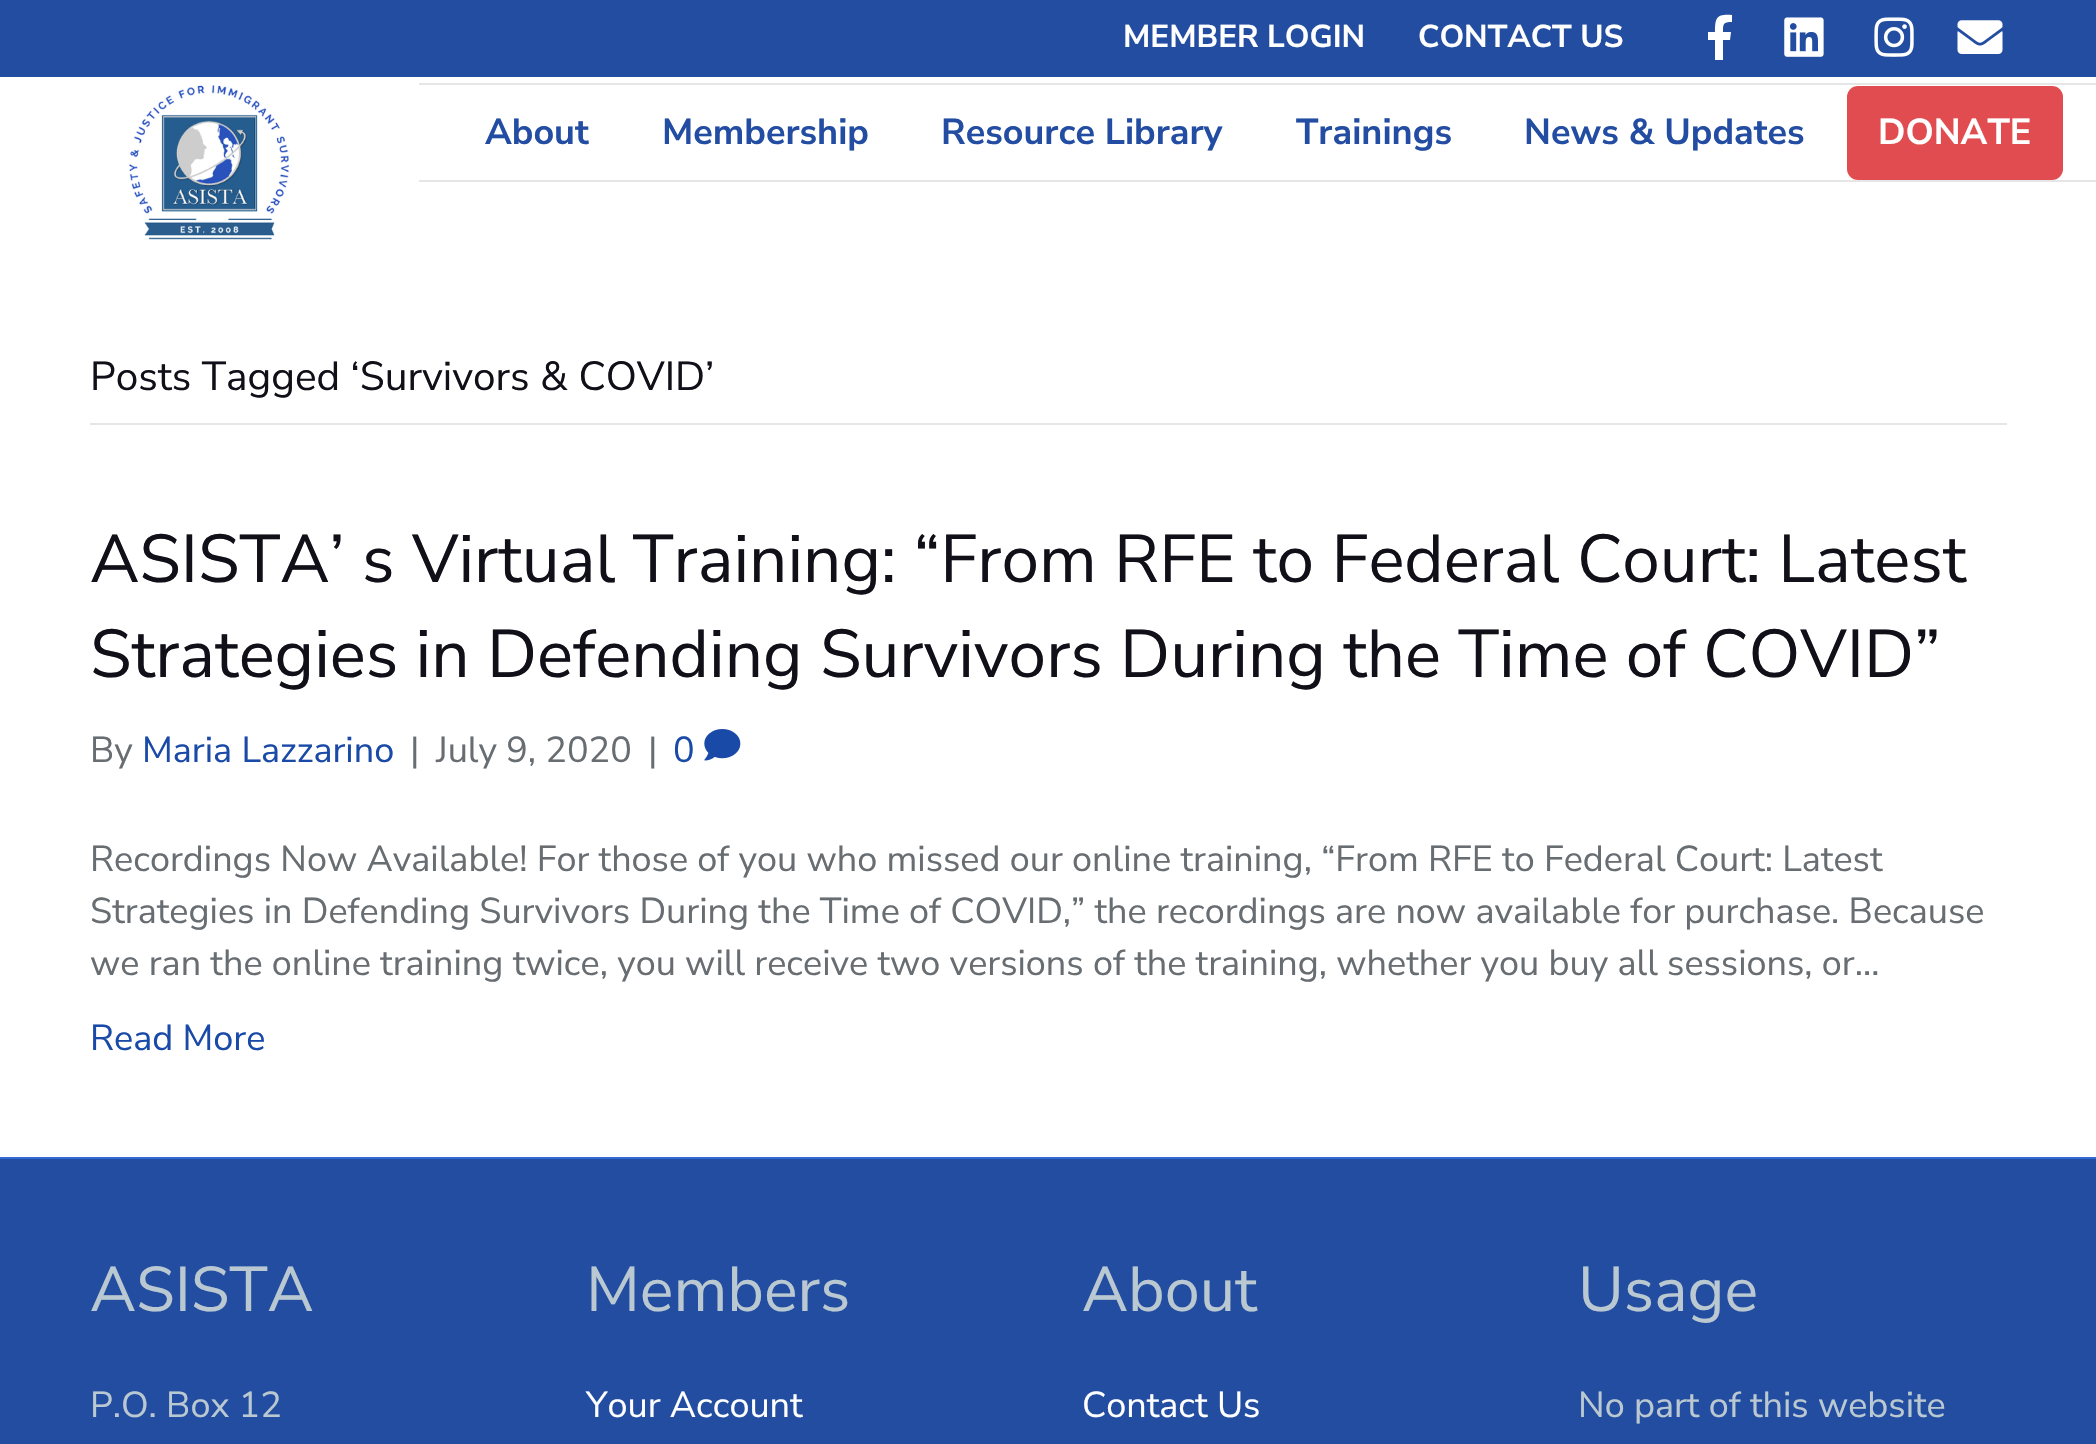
static SkFont makeFont(const char* family, int weight, float size, bool italic = false) {
  SkFontStyle style(weight, SkFontStyle::kNormal_Width,
    italic ? SkFontStyle::kItalic_Slant : SkFontStyle::kUpright_Slant);
  SkFont result(fontMgr->matchFamilyStyle(family, style), size);
  result.setSubpixel(true);
  return result;
}

static void text(SkCanvas* c, const char* s, float x, float y, const SkFont& font, SkColor color) {
  SkPaint ink(SkColor4f::FromColor(color));
  ink.setAntiAlias(true);
  c->drawString(s, x, y, font, ink);
}

static void box(SkCanvas* c, float l, float t, float r, float b, SkColor color) {
  SkPaint ink(SkColor4f::FromColor(color));
  ink.setAntiAlias(true);
  c->drawRect(SkRect::MakeLTRB(l, t, r, b), ink);
}

static void roundBox(SkCanvas* c, float l, float t, float r, float b, float radius, SkColor color) {
  SkPaint ink(SkColor4f::FromColor(color));
  ink.setAntiAlias(true);
  c->drawRoundRect(SkRect::MakeLTRB(l, t, r, b), radius, radius, ink);
}

static void picture(SkCanvas* c, const char* path, float l, float t, float r, float b) {
  auto image = SkImages::DeferredFromEncodedData(SkData::MakeFromFileName(path));
  c->drawImageRect(image, SkRect::MakeLTRB(l, t, r, b), SkSamplingOptions());
}

void draw(SkCanvas* c) {
  SkPaint paint;
  paint.setAntiAlias(true);
  c->clear(0xff234da0);
  SkFont face1 = makeFont("Nunito Sans", 700, 31.5f);
  text(c, "MEMBER LOGIN", 1123, 47, face1, 0xffffffff);
  text(c, "CONTACT US", 1418, 47, face1, 0xffffffff);
  paint.setColor(0xffffffff);
  c->drawPath(SkPathBuilder().moveTo(1730, 40).lineTo(1723, 40).lineTo(1723, 60).lineTo(1715, 60).lineTo(1715, 40).lineTo(1708, 40).lineTo(1708, 32).lineTo(1715, 32).cubicTo(1715, 17, 1717, 14, 1732, 15).lineTo(1732, 22).cubicTo(1723, 22, 1723, 24, 1723, 32).lineTo(1731, 32).close().detach(), paint);
  picture(c, "img_01.png", 1784, 17, 1824, 57);
  picture(c, "img_02.png", 1874, 17, 1914, 57);
  picture(c, "img_03.png", 1957, 20, 2003, 54);
  box(c, 0, 77, 2096, 1157, 0xffffffff);
  picture(c, "img_04.png", 128, 85, 290, 240);
  box(c, 419, 83, 2096, 85, 0xffe6e6e6);
  box(c, 419, 180, 2096, 182, 0xffe6e6e6);
  SkFont face2 = makeFont("Nunito Sans", 700, 36);
  text(c, "About", 485, 144, face2, 0xff234da2);
  text(c, "Membership", 662, 144, face2, 0xff234da2);
  text(c, "Resource Library", 941, 144, face2, 0xff234da2);
  text(c, "Trainings", 1296, 144, face2, 0xff234da2);
  text(c, "News & Updates", 1524, 144, face2, 0xff234da2);
  roundBox(c, 1847, 86, 2063, 180, 11, 0xffe04c4f);
  text(c, "DONATE", 1878, 144, face2, 0xffffffff);
  box(c, 90, 423, 2007, 425, 0xffe6e6e6);
  SkFont face3 = makeFont("Nunito Sans", 400, 40.5f);
  text(c, "Posts Tagged ‘Survivors & COVID’", 90, 390, face3, 0xff111018);
  SkFont face4 = makeFont("Nunito Sans", 400, 67.5f);
  text(c, "ASISTA’ s Virtual Training: “From RFE to Federal Court: Latest", 90, 582, face4, 0xff111018);
  text(c, "Strategies in Defending Survivors During the Time of COVID”", 90, 677, face4, 0xff111018);
  SkFont face5 = makeFont("Nunito Sans", 400, 36);
  text(c, "By", 90, 762, face5, 0xff686d72);
  text(c, "Maria Lazzarino", 142, 762, face5, 0xff1a4aa8);
  text(c, "|", 410, 762, face5, 0xff686d72);
  text(c, "July 9, 2020", 436, 762, face5, 0xff686d72);
  text(c, "|", 648, 762, face5, 0xff686d72);
  text(c, "0", 673, 762, face5, 0xff1a4aa8);
  picture(c, "img_05.png", 704, 729, 741, 761);
  text(c, "Recordings Now Available! For those of you who missed our online training, “From RFE to Federal Court: Latest", 90, 871, face5, 0xff686d72);
  text(c, "Strategies in Defending Survivors During the Time of COVID,” the recordings are now available for purchase. Because", 90, 923, face5, 0xff686d72);
  text(c, "we ran the online training twice, you will receive two versions of the training, whether you buy all sessions, or…", 90, 975, face5, 0xff686d72);
  text(c, "Read More", 90, 1050, face5, 0xff1a4aa8);
  box(c, 0, 1157, 2096, 1159, 0xff3469d3);
  SkFont face6 = makeFont("Nunito Sans", 400, 63);
  text(c, "ASISTA", 90, 1311, face6, 0xffbac8d1);
  text(c, "P.O. Box 12", 90, 1417, face5, 0xffbac8d1);
  text(c, "Members", 586, 1311, face6, 0xffbac8d1);
  text(c, "Your Account", 586, 1417, face5, 0xffffffff);
  text(c, "About", 1082, 1311, face6, 0xffbac8d1);
  text(c, "Contact Us", 1082, 1417, face5, 0xffffffff);
  text(c, "Usage", 1578, 1311, face6, 0xffbac8d1);
  text(c, "No part of this website", 1578, 1417, face5, 0xffbac8d1);
}
